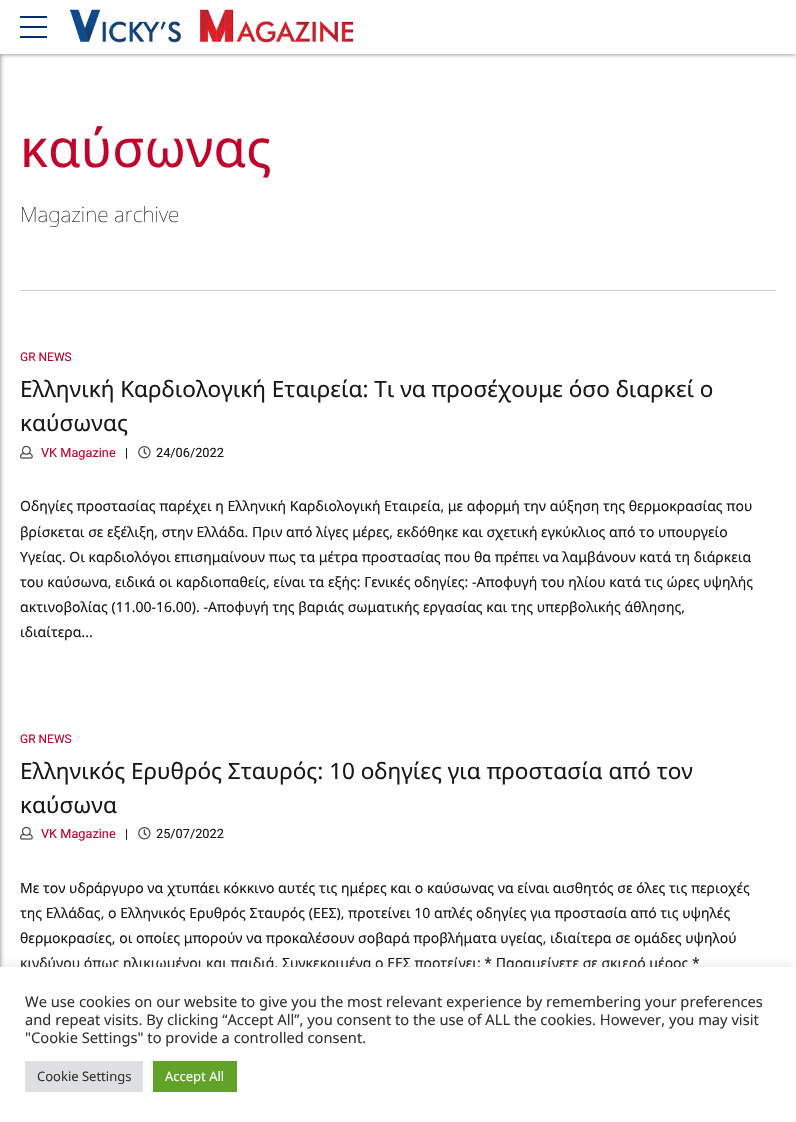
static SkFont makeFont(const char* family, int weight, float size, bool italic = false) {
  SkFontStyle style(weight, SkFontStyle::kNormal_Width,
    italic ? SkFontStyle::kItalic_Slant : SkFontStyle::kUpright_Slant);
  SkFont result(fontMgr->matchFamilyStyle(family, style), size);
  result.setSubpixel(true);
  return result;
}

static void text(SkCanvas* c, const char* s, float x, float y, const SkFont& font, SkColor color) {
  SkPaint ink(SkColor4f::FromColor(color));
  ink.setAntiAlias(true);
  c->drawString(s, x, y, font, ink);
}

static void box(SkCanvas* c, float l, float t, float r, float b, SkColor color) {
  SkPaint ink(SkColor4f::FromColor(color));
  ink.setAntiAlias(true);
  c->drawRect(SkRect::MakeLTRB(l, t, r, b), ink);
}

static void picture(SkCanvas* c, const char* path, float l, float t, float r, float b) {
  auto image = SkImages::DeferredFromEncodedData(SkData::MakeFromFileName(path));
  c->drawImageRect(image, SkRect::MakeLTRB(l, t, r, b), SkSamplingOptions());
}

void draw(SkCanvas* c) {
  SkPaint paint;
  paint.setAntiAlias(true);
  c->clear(0xffffffff);
  paint.setColor(0x80000000);
  paint.setMaskFilter(SkMaskFilter::MakeBlur(kNormal_SkBlurStyle, 2.5f));
  c->drawRect(SkRect::MakeLTRB(-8, 0, 0, 1122), paint);
  paint.setMaskFilter(nullptr);
  paint.setMaskFilter(SkMaskFilter::MakeBlur(kNormal_SkBlurStyle, 2.5f));
  c->drawRect(SkRect::MakeLTRB(0, 0, 796, 54), paint);
  paint.setMaskFilter(nullptr);
  box(c, 0, 0, 796, 54, 0xffffffff);
  box(c, 20, 16, 47, 18, 0xff003069);
  box(c, 20, 26, 47, 28, 0xff003069);
  box(c, 20, 36, 47, 38, 0xff003069);
  picture(c, "img_01.png", 69, 9, 354, 43);
  box(c, 20, 290, 776, 291, 0xffcccccc);
  SkFont face1 = makeFont("Noto Sans", 400, 52.5f);
  text(c, "καύσωνας", 20, 167, face1, 0xffc1042c);
  SkFont face2 = makeFont("Noto Sans", 100, 21);
  text(c, "Magazine archive", 20, 222, face2, 0xff181818);
  SkFont face3 = makeFont("Roboto", 400, 12);
  text(c, "GR NEWS", 20, 361, face3, 0xffc1042c);
  SkFont face4 = makeFont("Noto Sans", 400, 22.5f);
  text(c, "Ελληνική Καρδιολογική Εταιρεία: Τι να προσέχουμε όσο διαρκεί ο", 20, 397, face4, 0xff181818);
  text(c, "καύσωνας", 20, 431, face4, 0xff181818);
  picture(c, "img_02.png", 20, 445, 33, 459);
  SkFont face5 = makeFont("Roboto", 400, 12.75f);
  text(c, "VK Magazine", 41, 457, face5, 0xffc1042c);
  text(c, "|", 125, 457, face5, 0xff181818);
  picture(c, "img_03.png", 138, 446, 151, 459);
  text(c, "24/06/2022", 156, 457, face5, 0xff181818);
  SkFont face6 = makeFont("Noto Sans", 400, 14);
  text(c, "Οδηγίες προστασίας παρέχει η Ελληνική Καρδιολογική Εταιρεία, με αφορμή την αύξηση της θερμοκρασίας που", 20, 511, face6, 0xff181818);
  text(c, "βρίσκεται σε εξέλιξη, στην Ελλάδα. Πριν από λίγες μέρες, εκδόθηκε και σχετική εγκύκλιος από το υπουργείο", 20, 537, face6, 0xff181818);
  text(c, "Υγείας. Οι καρδιολόγοι επισημαίνουν πως τα μέτρα προστασίας που θα πρέπει να λαμβάνουν κατά τη διάρκεια", 20, 562, face6, 0xff181818);
  text(c, "του καύσωνα, ειδικά οι καρδιοπαθείς, είναι τα εξής: Γενικές οδηγίες: -Αποφυγή του ηλίου κατά τις ώρες υψηλής", 20, 587, face6, 0xff181818);
  text(c, "ακτινοβολίας (11.00-16.00). -Αποφυγή της βαριάς σωματικής εργασίας και της υπερβολικής άθλησης,", 20, 612, face6, 0xff181818);
  text(c, "ιδιαίτερα...", 20, 637, face6, 0xff181818);
  text(c, "GR NEWS", 20, 743, face3, 0xffc1042c);
  text(c, "Ελληνικός Ερυθρός Σταυρός: 10 οδηγίες για προστασία από τον", 20, 779, face4, 0xff181818);
  text(c, "καύσωνα", 20, 813, face4, 0xff181818);
  picture(c, "img_02.png", 20, 826, 33, 840);
  text(c, "VK Magazine", 41, 838, face5, 0xffc1042c);
  text(c, "|", 125, 838, face5, 0xff181818);
  picture(c, "img_03.png", 138, 827, 151, 840);
  text(c, "25/07/2022", 156, 838, face5, 0xff181818);
  text(c, "Με τον υδράργυρο να χτυπάει κόκκινο αυτές τις ημέρες και ο καύσωνας να είναι αισθητός σε όλες τις περιοχές", 20, 893, face6, 0xff181818);
  text(c, "της Ελλάδας, ο Ελληνικός Ερυθρός Σταυρός (ΕΕΣ), προτείνει 10 απλές οδηγίες για προστασία από τις υψηλές", 20, 918, face6, 0xff181818);
  text(c, "θερμοκρασίες, οι οποίες μπορούν να προκαλέσουν σοβαρά προβλήματα υγείας, ιδιαίτερα σε ομάδες υψηλού", 20, 943, face6, 0xff181818);
  text(c, "κινδύνου όπως ηλικιωμένοι και παιδιά. Συγκεκριμένα ο ΕΕΣ προτείνει: * Παραμείνετε σε σκιερό μέρος *", 20, 968, face6, 0xff181818);
  paint.setColor(0x4dacabab);
  paint.setMaskFilter(SkMaskFilter::MakeBlur(kNormal_SkBlurStyle, 5));
  c->drawRect(SkRect::MakeLTRB(0, 966, 796, 1121), paint);
  paint.setMaskFilter(nullptr);
  box(c, 0, 967, 796, 1122, 0xffffffff);
  SkFont face7 = makeFont("Noto Sans", 400, 14.67f);
  text(c, "We use cookies on our website to give you the most relevant experience by remembering your preferences", 25, 1007, face7, 0xff333333);
  text(c, "and repeat visits. By clicking “Accept All”, you consent to the use of ALL the cookies. However, you may visit", 25, 1025, face7, 0xff333333);
  text(c, "\"Cookie Settings\" to provide a controlled consent.", 25, 1043, face7, 0xff333333);
  box(c, 25, 1061, 143, 1092, 0xffdedfe0);
  SkFont face8 = makeFont("Noto Sans", 400, 13);
  text(c, "Cookie Settings", 37, 1081, face8, 0xff333333);
  box(c, 153, 1061, 237, 1092, 0xff61a229);
  text(c, "Accept All", 165, 1081, face8, 0xffffffff);
}
